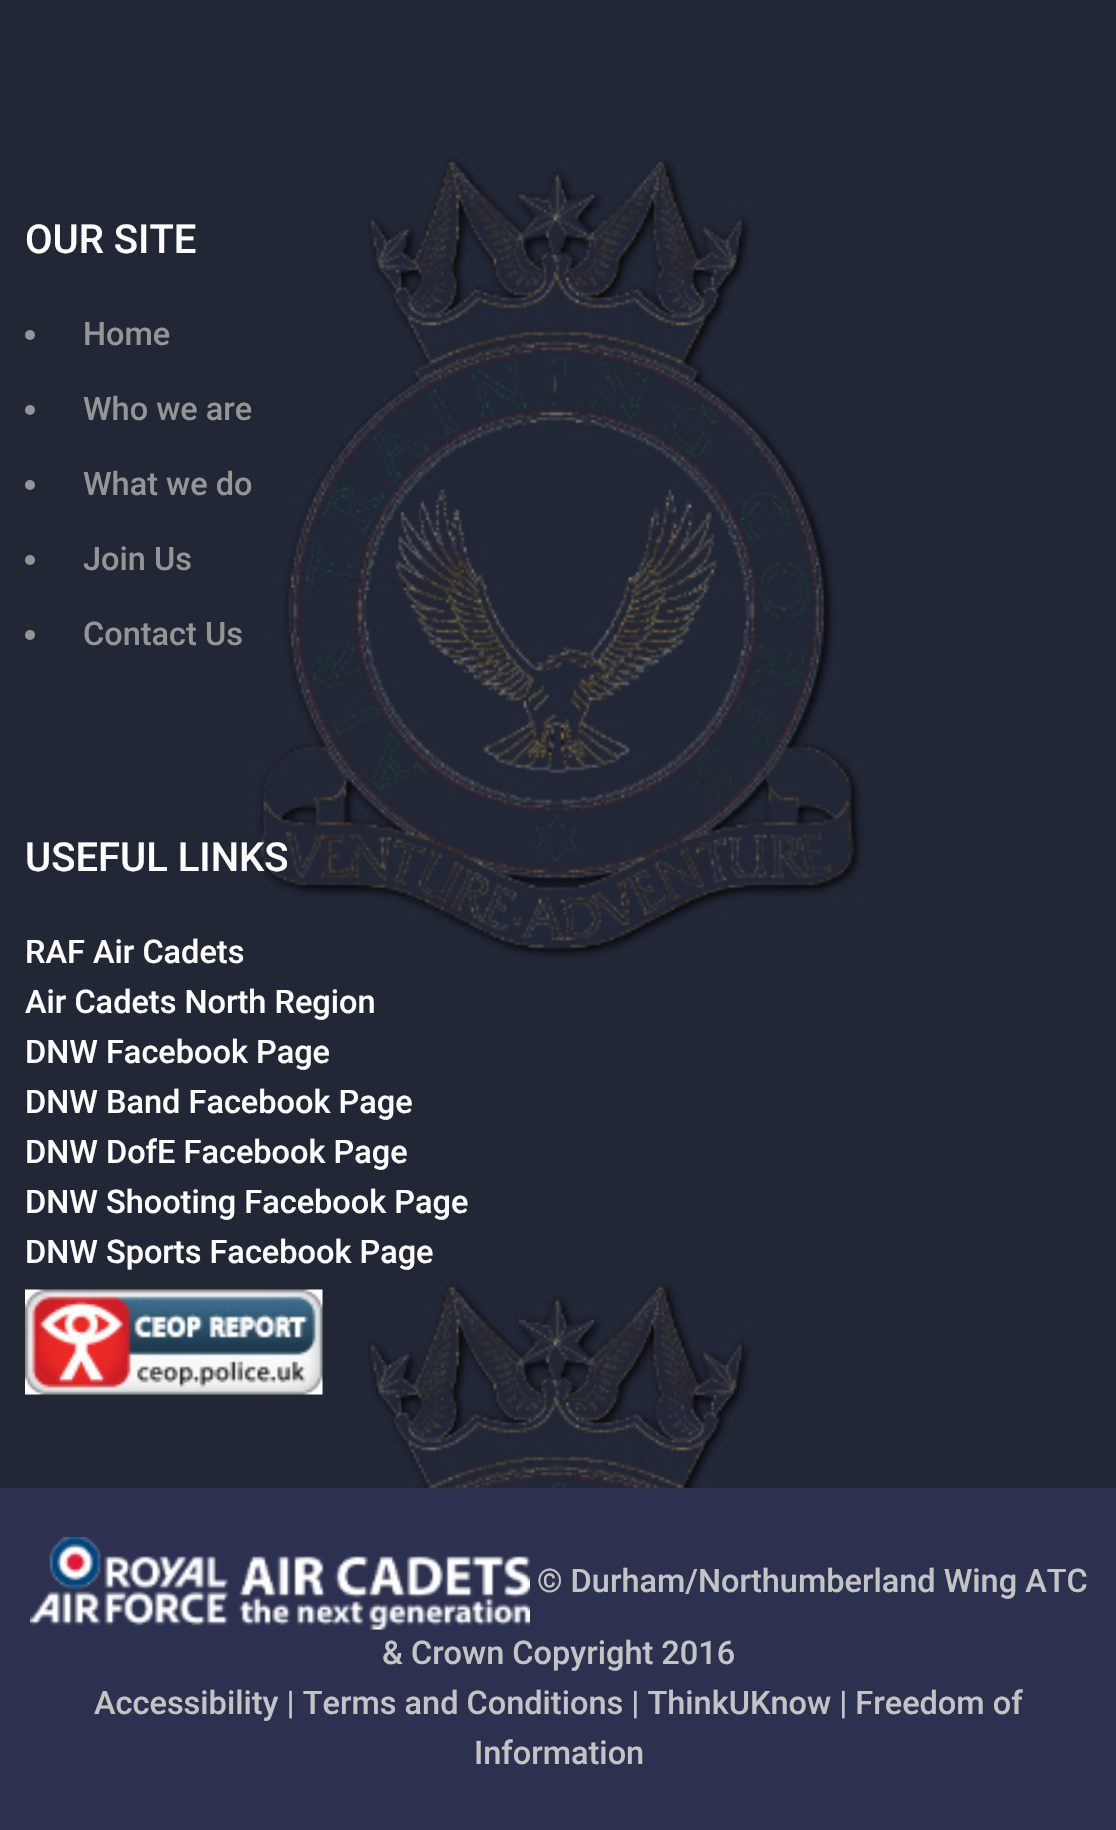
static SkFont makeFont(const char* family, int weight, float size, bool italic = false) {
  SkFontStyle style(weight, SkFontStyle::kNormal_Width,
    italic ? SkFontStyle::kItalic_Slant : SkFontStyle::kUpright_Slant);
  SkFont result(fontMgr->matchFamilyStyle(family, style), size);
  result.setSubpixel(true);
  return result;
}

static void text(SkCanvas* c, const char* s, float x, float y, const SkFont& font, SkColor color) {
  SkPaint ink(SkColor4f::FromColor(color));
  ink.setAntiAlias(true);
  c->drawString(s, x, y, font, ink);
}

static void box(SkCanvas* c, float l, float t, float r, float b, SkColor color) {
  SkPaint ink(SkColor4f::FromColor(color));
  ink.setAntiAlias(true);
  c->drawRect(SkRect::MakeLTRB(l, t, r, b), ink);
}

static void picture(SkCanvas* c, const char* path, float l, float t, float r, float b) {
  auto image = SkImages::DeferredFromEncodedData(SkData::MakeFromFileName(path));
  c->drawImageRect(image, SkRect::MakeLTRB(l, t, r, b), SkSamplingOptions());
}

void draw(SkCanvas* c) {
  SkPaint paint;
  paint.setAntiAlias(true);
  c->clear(0xffffffff);
  picture(c, "img_01.png", 0, 0, 1116, 1488);
  SkFont face1 = makeFont("Roboto", 500, 40);
  text(c, "OUR SITE", 25, 253, face1, 0xffffffff);
  paint.setColor(0xff969595);
  c->drawCircle(30, 335, 5, paint);
  SkFont face2 = makeFont("Roboto", 500, 32.5f);
  text(c, "Home", 83, 345, face2, 0xff969595);
  c->drawCircle(30, 410, 5, paint);
  text(c, "Who we are", 83, 420, face2, 0xff969595);
  c->drawCircle(30, 485, 5, paint);
  text(c, "What we do", 83, 495, face2, 0xff969595);
  c->drawCircle(30, 560, 5, paint);
  text(c, "Join Us", 83, 570, face2, 0xff969595);
  c->drawCircle(30, 635, 5, paint);
  text(c, "Contact Us", 83, 645, face2, 0xff969595);
  text(c, "USEFUL LINKS", 25, 871, face1, 0xffffffff);
  text(c, "RAF Air Cadets", 25, 963, face2, 0xffffffff);
  text(c, "Air Cadets North Region", 25, 1013, face2, 0xffffffff);
  text(c, "DNW Facebook Page", 25, 1063, face2, 0xffffffff);
  text(c, "DNW Band Facebook Page", 25, 1113, face2, 0xffffffff);
  text(c, "DNW DofE Facebook Page", 25, 1163, face2, 0xffffffff);
  text(c, "DNW Shooting Facebook Page", 25, 1213, face2, 0xffffffff);
  text(c, "DNW Sports Facebook Page", 25, 1263, face2, 0xffffffff);
  picture(c, "img_02.png", 25, 1289, 323, 1395);
  box(c, 0, 1488, 1116, 1830, 0xff2c3150);
  picture(c, "img_03.png", 30, 1537, 530, 1630);
  text(c, "© Durham/Northumberland Wing ATC", 537, 1592, face2, 0xffc5c4c4);
  text(c, "& Crown Copyright 2016", 382, 1664, face2, 0xffc5c4c4);
  text(c, "Accessibility | Terms and Conditions | ThinkUKnow | Freedom of", 94, 1714, face2, 0xffc5c4c4);
  text(c, "Information", 474, 1764, face2, 0xffc5c4c4);
}
